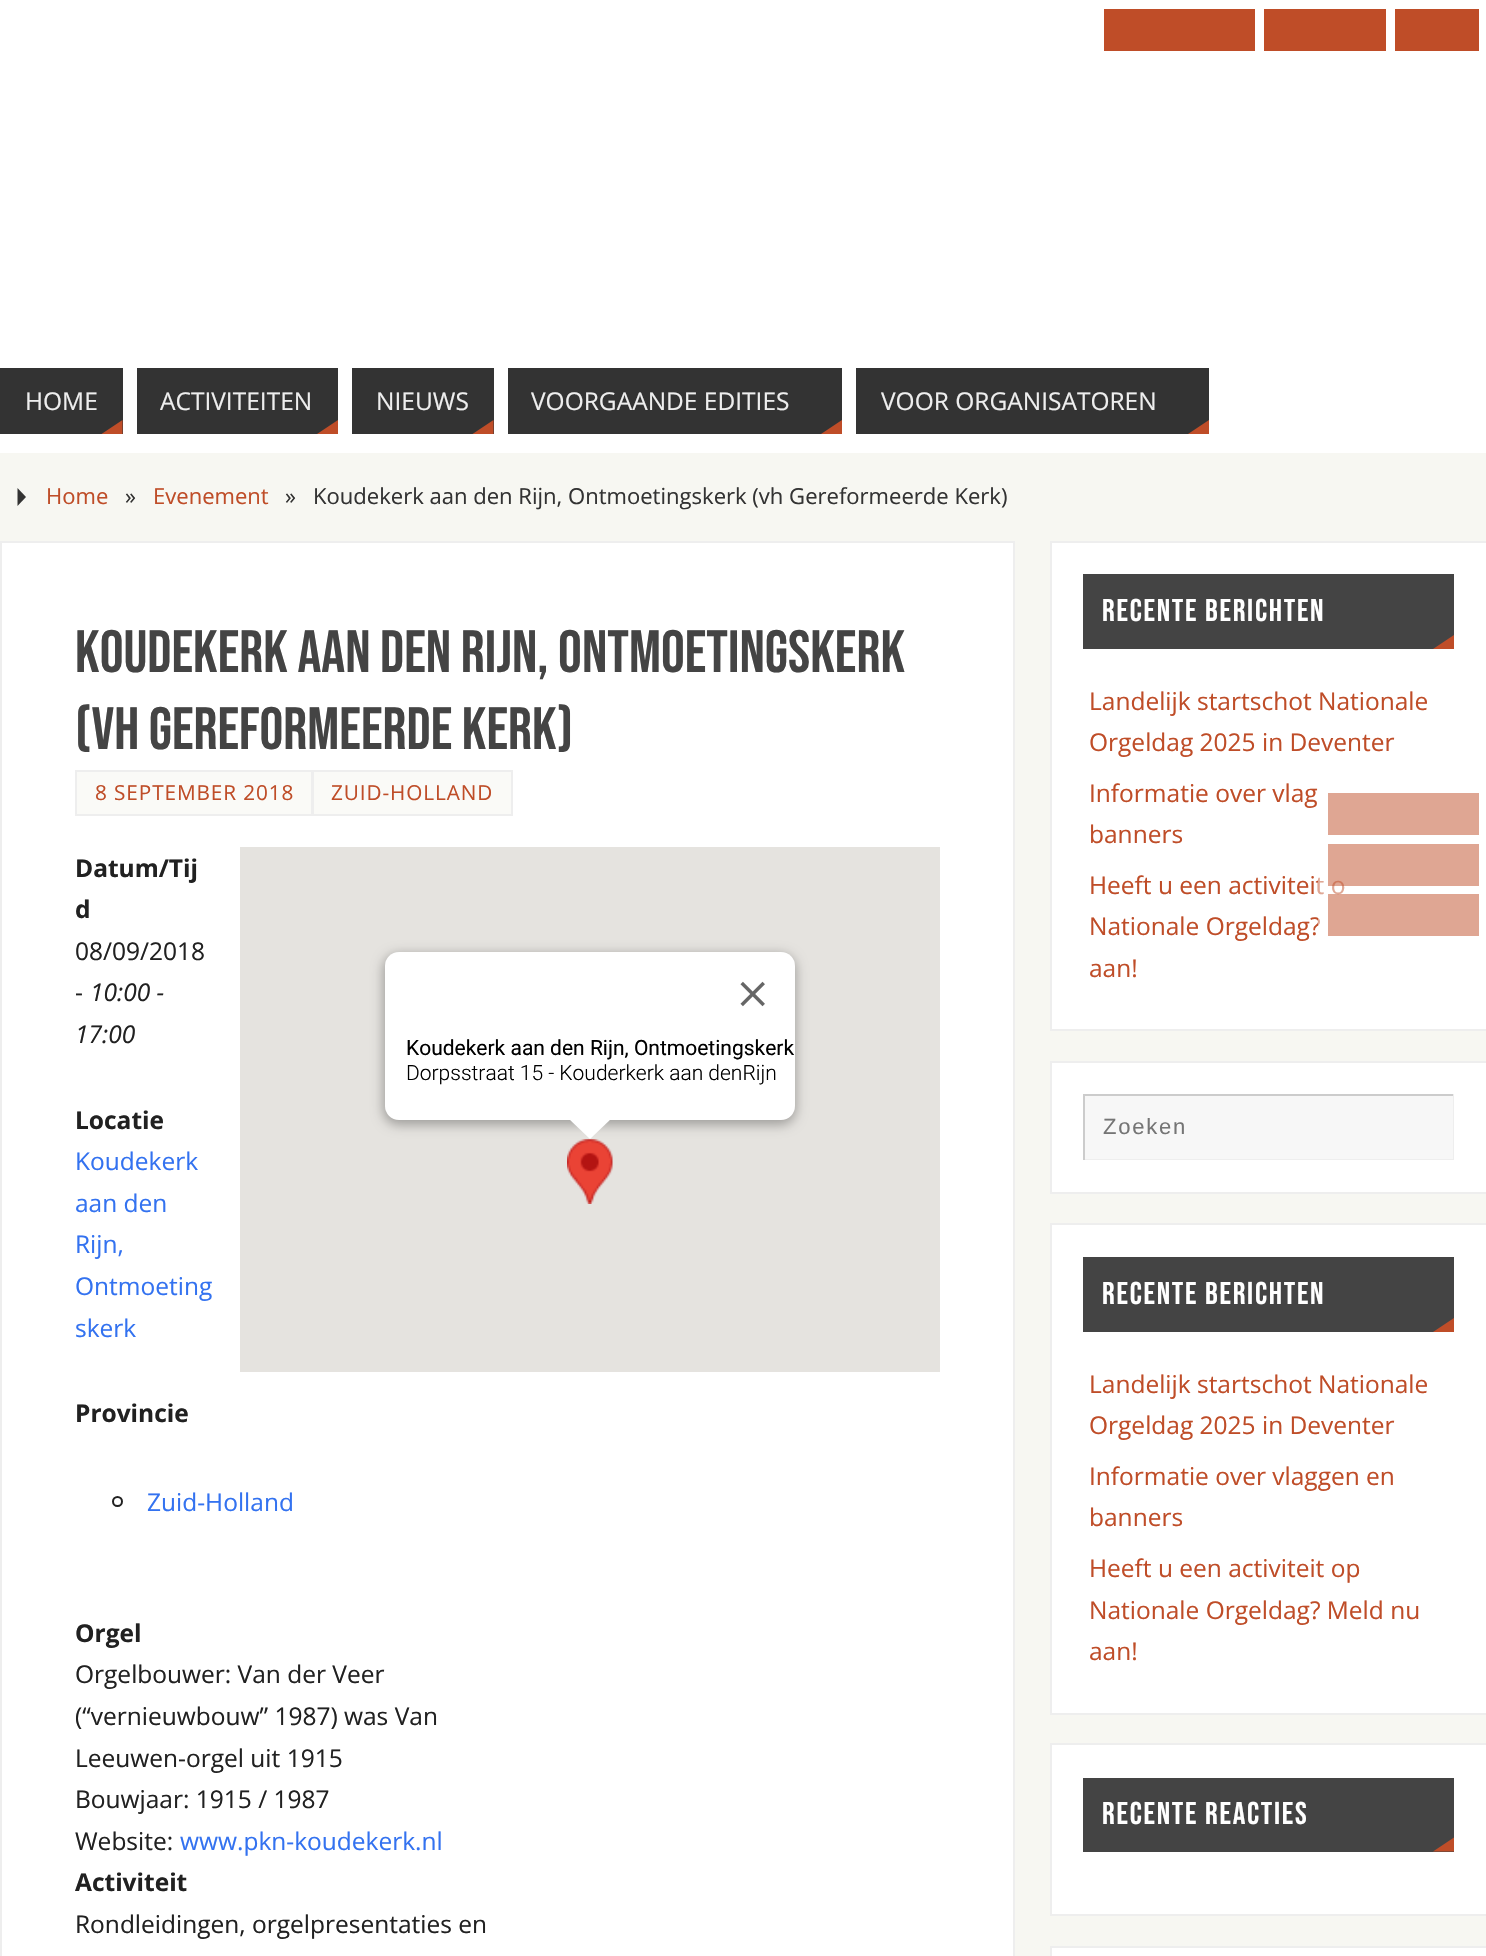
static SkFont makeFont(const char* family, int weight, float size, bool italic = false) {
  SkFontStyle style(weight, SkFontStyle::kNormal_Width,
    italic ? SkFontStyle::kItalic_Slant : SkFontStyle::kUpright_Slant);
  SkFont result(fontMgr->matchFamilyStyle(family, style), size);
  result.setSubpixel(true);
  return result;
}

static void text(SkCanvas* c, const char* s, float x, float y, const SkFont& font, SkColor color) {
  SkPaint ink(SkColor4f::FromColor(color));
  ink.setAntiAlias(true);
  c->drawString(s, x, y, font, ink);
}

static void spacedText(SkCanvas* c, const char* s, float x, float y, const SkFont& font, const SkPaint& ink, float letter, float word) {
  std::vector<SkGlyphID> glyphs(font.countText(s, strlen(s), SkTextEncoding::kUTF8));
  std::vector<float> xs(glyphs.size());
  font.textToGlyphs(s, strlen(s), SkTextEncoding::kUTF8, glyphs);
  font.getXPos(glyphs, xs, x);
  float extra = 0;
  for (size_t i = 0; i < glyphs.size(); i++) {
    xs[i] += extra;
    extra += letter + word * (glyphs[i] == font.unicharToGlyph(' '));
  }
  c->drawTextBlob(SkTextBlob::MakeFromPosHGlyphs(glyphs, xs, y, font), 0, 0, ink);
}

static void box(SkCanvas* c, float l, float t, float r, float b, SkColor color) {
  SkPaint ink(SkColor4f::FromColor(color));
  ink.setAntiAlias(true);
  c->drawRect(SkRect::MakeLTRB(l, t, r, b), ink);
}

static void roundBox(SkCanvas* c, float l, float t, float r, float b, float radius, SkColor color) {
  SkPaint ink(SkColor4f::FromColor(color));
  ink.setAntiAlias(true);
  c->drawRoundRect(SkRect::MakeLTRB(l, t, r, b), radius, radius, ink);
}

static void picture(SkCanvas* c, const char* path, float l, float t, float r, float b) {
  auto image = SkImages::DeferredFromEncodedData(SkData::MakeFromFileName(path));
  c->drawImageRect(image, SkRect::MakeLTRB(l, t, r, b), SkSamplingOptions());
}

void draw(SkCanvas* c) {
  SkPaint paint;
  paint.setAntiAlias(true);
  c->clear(0xfff7f7f2);
  box(c, 0, 0, 1486, 453, 0xffffffff);
  box(c, 1104, 9, 1255, 51, 0xffbf4d28);
  box(c, 1264, 9, 1386, 51, 0xffbf4d28);
  box(c, 1395, 9, 1479, 51, 0xffbf4d28);
  box(c, 0, 368, 123, 434, 0xff333333);
  SkFont face1 = makeFont("Open Sans", 400, 24.5f);
  text(c, "HOME", 25, 410, face1, 0xffeeeeee);
  paint.setColor(0xffbf4d28);
  c->drawPath(SkPathBuilder().moveTo(122.5f, 434).lineTo(101.5f, 434).lineTo(122.5f, 420).close().detach(), paint);
  box(c, 137, 368, 338, 434, 0xff333333);
  text(c, "ACTIVITEITEN", 160, 410, face1, 0xffeeeeee);
  c->drawPath(SkPathBuilder().moveTo(338, 434).lineTo(317, 434).lineTo(338, 420).close().detach(), paint);
  box(c, 352, 368, 494, 434, 0xff333333);
  text(c, "NIEUWS", 376, 410, face1, 0xffeeeeee);
  c->drawPath(SkPathBuilder().moveTo(493.5f, 434).lineTo(472.5f, 434).lineTo(493.5f, 420).close().detach(), paint);
  box(c, 508, 368, 842, 434, 0xff333333);
  text(c, "VOORGAANDE EDITIES", 531, 410, face1, 0xffeeeeee);
  c->drawPath(SkPathBuilder().moveTo(842, 434).lineTo(821, 434).lineTo(842, 420).close().detach(), paint);
  box(c, 856, 368, 1209, 434, 0xff333333);
  text(c, "VOOR ORGANISATOREN", 881, 410, face1, 0xffeeeeee);
  c->drawPath(SkPathBuilder().moveTo(1209, 434).lineTo(1188, 434).lineTo(1209, 420).close().detach(), paint);
  paint.setColor(0xff333333);
  c->drawPath(SkPathBuilder().moveTo(17.5f, 506).lineTo(17.5f, 488).lineTo(26, 497).close().detach(), paint);
  SkFont face2 = makeFont("Open Sans", 400, 22.05f);
  text(c, "Home", 46, 504, face2, 0xffbf4d28);
  text(c, "»", 125, 504, face2, 0xff333333);
  text(c, "Evenement", 153, 504, face2, 0xffbf4d28);
  text(c, "»", 285, 504, face2, 0xff333333);
  text(c, "Koudekerk aan den Rijn, Ontmoetingskerk (vh Gereformeerde Kerk)", 313, 504, face2, 0xff333333);
  paint.setColor(0xffffffff);
  c->drawRect(SkRect::MakeLTRB(1, 542, 1014, 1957), paint);
  paint.setStyle(SkPaint::kStroke_Style);
  paint.setStrokeWidth(2);
  paint.setColor(0xffeeeeee);
  c->drawRect(SkRect::MakeLTRB(1, 542, 1014, 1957), paint);
  SkFont face3 = makeFont("Bebas Neue", 400, 59.5f);
  text(c, "Koudekerk aan den Rijn, Ontmoetingskerk", 75, 672, face3, 0xff444444);
  text(c, "(vh Gereformeerde Kerk)", 75, 749, face3, 0xff444444);
  paint.setStyle(SkPaint::kFill_Style);
  paint.setColor(0xfffafaf7);
  c->drawRect(SkRect::MakeLTRB(76, 771, 312, 815), paint);
  paint.setStyle(SkPaint::kStroke_Style);
  paint.setColor(0xffeeeeee);
  c->drawRect(SkRect::MakeLTRB(76, 771, 312, 815), paint);
  SkFont face4 = makeFont("Open Sans", 400, 20.75f);
  paint.setStyle(SkPaint::kFill_Style);
  paint.setColor(0xffbf4d28);
  spacedText(c, "8 SEPTEMBER 2018", 95, 800, face4, paint, 0.9f, 0);
  paint.setColor(0xfffafaf7);
  c->drawRect(SkRect::MakeLTRB(313, 771, 512, 815), paint);
  paint.setStyle(SkPaint::kStroke_Style);
  paint.setColor(0xffeeeeee);
  c->drawRect(SkRect::MakeLTRB(313, 771, 512, 815), paint);
  paint.setStyle(SkPaint::kFill_Style);
  paint.setColor(0xffbf4d28);
  spacedText(c, "ZUID-HOLLAND", 331, 800, face4, paint, 0.9f, 0);
  SkFont face5 = makeFont("Open Sans", 700, 24.5f);
  text(c, "Datum/Tij", 75, 877, face5, 0xff212121);
  text(c, "d", 75, 918, face5, 0xff212121);
  text(c, "08/09/2018", 75, 960, face1, 0xff212121);
  text(c, "-", 75, 1001, face1, 0xff212121);
  SkFont face6 = makeFont("Open Sans", 400, 24.5f, true);
  text(c, "10:00 -", 90, 1001, face6, 0xff212121);
  text(c, "17:00", 75, 1043, face6, 0xff212121);
  box(c, 240, 847, 940, 1372, 0xffe5e3df);
  picture(c, "img_02.png", 567, 1139, 613, 1204);
  paint.setColor(0x4d000000);
  paint.setMaskFilter(SkMaskFilter::MakeBlur(kNormal_SkBlurStyle, 6));
  c->drawRoundRect(SkRect::MakeLTRB(383, 954, 796, 1125), 16, 16, paint);
  paint.setMaskFilter(nullptr);
  roundBox(c, 385, 952, 795, 1120, 14, 0xffffffff);
  picture(c, "img_01.png", 740, 981, 765, 1007);
  SkFont face7 = makeFont("Roboto", 400, 21);
  text(c, "Koudekerk aan den Rijn, Ontmoetingskerk", 406, 1055, face7, 0xff000000);
  SkFont face8 = makeFont("Roboto", 300, 21);
  text(c, "Dorpsstraat 15 - Kouderkerk aan denRijn", 406, 1080, face8, 0xff000000);
  paint.setColor(0xffffffff);
  c->drawPath(SkPathBuilder().moveTo(569, 1119).lineTo(569, 1118).lineTo(612, 1118).lineTo(590, 1139).close().detach(), paint);
  text(c, "Locatie", 75, 1129, face5, 0xff212121);
  text(c, "Koudekerk", 75, 1170, face1, 0xff3372f0);
  text(c, "aan den", 75, 1212, face1, 0xff3372f0);
  text(c, "Rijn,", 75, 1253, face1, 0xff3372f0);
  text(c, "Ontmoeting", 75, 1295, face1, 0xff3372f0);
  text(c, "skerk", 75, 1337, face1, 0xff3372f0);
  text(c, "Provincie", 75, 1422, face5, 0xff212121);
  paint.setStyle(SkPaint::kStroke_Style);
  paint.setColor(0xff212121);
  c->drawCircle(117.5f, 1501.5f, 4.5f, paint);
  text(c, "Zuid-Holland", 147, 1511, face1, 0xff3372f0);
  text(c, "Orgel", 75, 1642, face5, 0xff212121);
  text(c, "Orgelbouwer: Van der Veer", 75, 1683, face1, 0xff212121);
  text(c, "(“vernieuwbouw” 1987) was Van", 75, 1725, face1, 0xff212121);
  text(c, "Leeuwen-orgel uit 1915", 75, 1767, face1, 0xff212121);
  text(c, "Bouwjaar: 1915 / 1987", 75, 1808, face1, 0xff212121);
  text(c, "Website:", 75, 1850, face1, 0xff212121);
  text(c, "www.pkn-koudekerk.nl", 180, 1850, face1, 0xff3372f0);
  text(c, "Activiteit", 75, 1891, face5, 0xff212121);
  text(c, "Rondleidingen, orgelpresentaties en", 75, 1933, face1, 0xff212121);
  paint.setStyle(SkPaint::kFill_Style);
  paint.setColor(0xffffffff);
  c->drawRect(SkRect::MakeLTRB(1051, 542, 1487, 1030), paint);
  paint.setStyle(SkPaint::kStroke_Style);
  paint.setColor(0xffeeeeee);
  c->drawRect(SkRect::MakeLTRB(1051, 542, 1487, 1030), paint);
  box(c, 1083, 574, 1454, 649, 0xff444444);
  SkFont face9 = makeFont("Bebas Neue", 400, 31.5f);
  paint.setStyle(SkPaint::kFill_Style);
  paint.setColor(0xffffffff);
  spacedText(c, "RECENTE BERICHTEN", 1102, 621, face9, paint, 1.75f, 0);
  paint.setColor(0xffbf4d28);
  c->drawPath(SkPathBuilder().moveTo(1454, 649).lineTo(1433, 649).lineTo(1454, 635).close().detach(), paint);
  text(c, "Landelijk startschot Nationale", 1089, 710, face1, 0xffbf4d28);
  text(c, "Orgeldag 2025 in Deventer", 1089, 751, face1, 0xffbf4d28);
  text(c, "Informatie over vlag", 1089, 802, face1, 0xffbf4d28);
  text(c, "banners", 1089, 843, face1, 0xffbf4d28);
  text(c, "Heeft u een activiteit o", 1089, 894, face1, 0xffbf4d28);
  text(c, "Nationale Orgeldag?", 1089, 935, face1, 0xffbf4d28);
  text(c, "aan!", 1089, 977, face1, 0xffbf4d28);
  paint.setColor(0xffffffff);
  c->drawRect(SkRect::MakeLTRB(1051, 1062, 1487, 1193), paint);
  paint.setStyle(SkPaint::kStroke_Style);
  paint.setColor(0xffeeeeee);
  c->drawRect(SkRect::MakeLTRB(1051, 1062, 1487, 1193), paint);
  box(c, 1085, 1096, 1453, 1159, 0xfff7f7f7);
  box(c, 1083, 1094, 1454, 1096, 0xffcccccc);
  box(c, 1453, 1094, 1454, 1160, 0xffeeeeee);
  box(c, 1083, 1159, 1454, 1160, 0xffeeeeee);
  box(c, 1083, 1094, 1085, 1160, 0xffcccccc);
  SkFont face10 = makeFont("Liberation Sans", 400, 22.05f);
  paint.setStyle(SkPaint::kFill_Style);
  paint.setColor(0xff757575);
  spacedText(c, "Zoeken", 1103, 1134, face10, paint, 1.75f, 0);
  paint.setColor(0xffffffff);
  c->drawRect(SkRect::MakeLTRB(1051, 1224, 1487, 1714), paint);
  paint.setStyle(SkPaint::kStroke_Style);
  paint.setColor(0xffeeeeee);
  c->drawRect(SkRect::MakeLTRB(1051, 1224, 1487, 1714), paint);
  box(c, 1083, 1257, 1454, 1332, 0xff444444);
  paint.setStyle(SkPaint::kFill_Style);
  paint.setColor(0xffffffff);
  spacedText(c, "RECENTE BERICHTEN", 1102, 1304, face9, paint, 1.75f, 0);
  paint.setColor(0xffbf4d28);
  c->drawPath(SkPathBuilder().moveTo(1454, 1332).lineTo(1433, 1332).lineTo(1454, 1318).close().detach(), paint);
  text(c, "Landelijk startschot Nationale", 1089, 1393, face1, 0xffbf4d28);
  text(c, "Orgeldag 2025 in Deventer", 1089, 1434, face1, 0xffbf4d28);
  text(c, "Informatie over vlaggen en", 1089, 1485, face1, 0xffbf4d28);
  text(c, "banners", 1089, 1526, face1, 0xffbf4d28);
  text(c, "Heeft u een activiteit op", 1089, 1577, face1, 0xffbf4d28);
  text(c, "Nationale Orgeldag? Meld nu", 1089, 1619, face1, 0xffbf4d28);
  text(c, "aan!", 1089, 1660, face1, 0xffbf4d28);
  paint.setColor(0xffffffff);
  c->drawRect(SkRect::MakeLTRB(1051, 1744, 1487, 1915), paint);
  paint.setStyle(SkPaint::kStroke_Style);
  paint.setColor(0xffeeeeee);
  c->drawRect(SkRect::MakeLTRB(1051, 1744, 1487, 1915), paint);
  box(c, 1083, 1778, 1454, 1852, 0xff444444);
  paint.setStyle(SkPaint::kFill_Style);
  paint.setColor(0xffffffff);
  spacedText(c, "RECENTE REACTIES", 1102, 1824, face9, paint, 1.75f, 0);
  paint.setColor(0xffbf4d28);
  c->drawPath(SkPathBuilder().moveTo(1454, 1851.5f).lineTo(1433, 1851.5f).lineTo(1454, 1837.5f).close().detach(), paint);
  paint.setColor(0xffffffff);
  c->drawRect(SkRect::MakeLTRB(1051, 1947, 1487, 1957), paint);
  paint.setStyle(SkPaint::kStroke_Style);
  paint.setColor(0xffeeeeee);
  c->drawRect(SkRect::MakeLTRB(1051, 1947, 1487, 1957), paint);
  box(c, 1318, 877, 1344, 925, 0x80ffffff);
  box(c, 1328, 793, 1479, 835, 0x80bf4d28);
  box(c, 1328, 844, 1479, 886, 0x80bf4d28);
  box(c, 1328, 894, 1479, 936, 0x80bf4d28);
}
